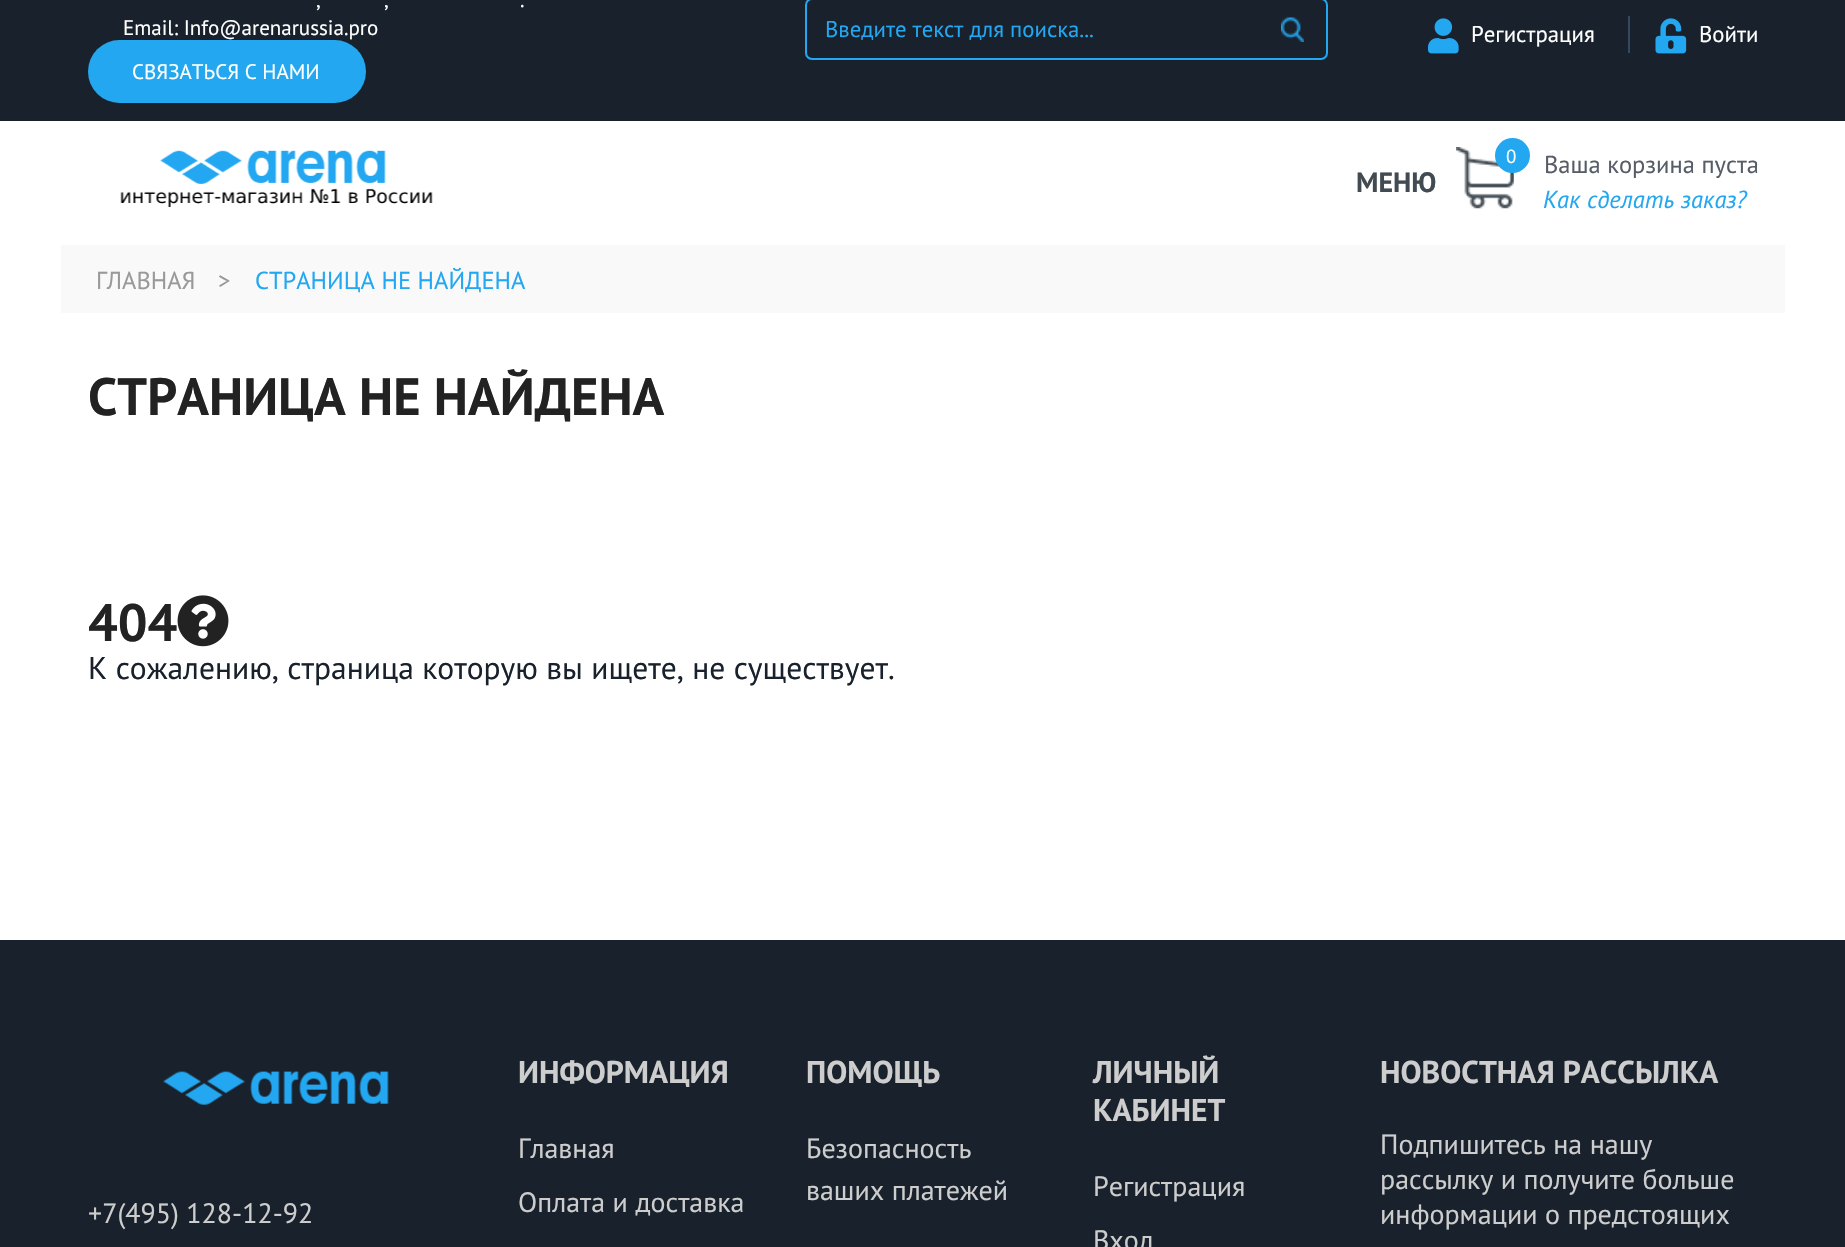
static SkFont makeFont(const char* family, int weight, float size, bool italic = false) {
  SkFontStyle style(weight, SkFontStyle::kNormal_Width,
    italic ? SkFontStyle::kItalic_Slant : SkFontStyle::kUpright_Slant);
  SkFont result(fontMgr->matchFamilyStyle(family, style), size);
  result.setSubpixel(true);
  return result;
}

static void text(SkCanvas* c, const char* s, float x, float y, const SkFont& font, SkColor color) {
  SkPaint ink(SkColor4f::FromColor(color));
  ink.setAntiAlias(true);
  c->drawString(s, x, y, font, ink);
}

static void box(SkCanvas* c, float l, float t, float r, float b, SkColor color) {
  SkPaint ink(SkColor4f::FromColor(color));
  ink.setAntiAlias(true);
  c->drawRect(SkRect::MakeLTRB(l, t, r, b), ink);
}

static void roundBox(SkCanvas* c, float l, float t, float r, float b, float radius, SkColor color) {
  SkPaint ink(SkColor4f::FromColor(color));
  ink.setAntiAlias(true);
  c->drawRoundRect(SkRect::MakeLTRB(l, t, r, b), radius, radius, ink);
}

static void picture(SkCanvas* c, const char* path, float l, float t, float r, float b) {
  auto image = SkImages::DeferredFromEncodedData(SkData::MakeFromFileName(path));
  c->drawImageRect(image, SkRect::MakeLTRB(l, t, r, b), SkSamplingOptions());
}

void draw(SkCanvas* c) {
  SkPaint paint;
  paint.setAntiAlias(true);
  c->clear(0xffffffff);
  box(c, 0, 0, 1845, 121, 0xff19222c);
  SkFont face1 = makeFont("PT Sans", 400, 21);
  text(c, ",", 316, 7, face1, 0xffffffff);
  text(c, ",", 384, 7, face1, 0xffffffff);
  text(c, ".", 520, 7, face1, 0xffffffff);
  text(c, "Email: Info@arenarussia.pro", 123, 35, face1, 0xffffffff);
  roundBox(c, 88, 40, 366, 103, 31.5f, 0xff23a7f1);
  text(c, "СВЯЗАТЬСЯ С НАМИ", 132, 79, face1, 0xffffffff);
  paint.setStyle(SkPaint::kStroke_Style);
  paint.setStrokeWidth(2);
  paint.setColor(0xff23a7f1);
  c->drawRoundRect(SkRect::MakeLTRB(806, -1, 1327, 59), 6, 6, paint);
  SkFont face2 = makeFont("PT Sans", 400, 22.75f);
  text(c, "Введите текст для поиска...", 825, 37, face2, 0xff23a7f1);
  picture(c, "img_01.png", 1281, 17, 1304, 42);
  picture(c, "img_02.png", 1428, 18, 1459, 54);
  text(c, "Регистрация", 1471, 42, face2, 0xffffffff);
  box(c, 1628, 16, 1630, 53, 0xff34495e);
  picture(c, "img_03.png", 1655, 18, 1687, 54);
  text(c, "Войти", 1699, 42, face2, 0xffffffff);
  picture(c, "img_04.png", 120, 150, 433, 207);
  SkFont face3 = makeFont("PT Sans", 700, 28);
  text(c, "МЕНЮ", 1356, 192, face3, 0xff424b52);
  picture(c, "img_05.png", 1456, 147, 1514, 209);
  paint.setStyle(SkPaint::kFill_Style);
  c->drawCircle(1512.5f, 155.5f, 17.5f, paint);
  SkFont face4 = makeFont("PT Sans", 400, 19);
  text(c, "0", 1506, 163, face4, 0xffffffff);
  SkFont face5 = makeFont("PT Sans", 400, 24.5f);
  text(c, "Ваша корзина пуста", 1544, 173, face5, 0xff565d67);
  SkFont face6 = makeFont("PT Sans", 400, 24.5f, true);
  text(c, "Как сделать заказ?", 1543, 208, face6, 0xff23a7f1);
  box(c, 61, 245, 1785, 313, 0xfff9f9f9);
  text(c, "ГЛАВНАЯ", 96, 289, face5, 0xff999999);
  text(c, ">", 218, 289, face5, 0xff999999);
  text(c, "СТРАНИЦА НЕ НАЙДЕНА", 255, 289, face5, 0xff23a7f1);
  SkFont face7 = makeFont("PT Sans", 700, 52.5f);
  text(c, "СТРАНИЦА НЕ НАЙДЕНА", 88, 415, face7, 0xff222222);
  text(c, "404", 88, 641, face7, 0xff222222);
  picture(c, "img_06.png", 177, 595, 229, 647);
  SkFont face8 = makeFont("PT Sans", 400, 31.5f);
  text(c, "К сожалению, страница которую вы ищете, не существует.", 88, 679, face8, 0xff19222c);
  box(c, 0, 940, 1845, 1247, 0xff19222c);
  picture(c, "img_07.png", 163, 1071, 389, 1105);
  SkFont face9 = makeFont("PT Sans", 400, 28);
  text(c, "+7(495) 128-12-92", 88, 1223, face9, 0xffcdcdcd);
  SkFont face10 = makeFont("PT Sans", 700, 31.5f);
  text(c, "ИНФОРМАЦИЯ", 518, 1083, face10, 0xffcdcdcd);
  text(c, "Главная", 518, 1158, face9, 0xffcdcdcd);
  text(c, "Оплата и доставка", 518, 1212, face9, 0xffcdcdcd);
  text(c, "ПОМОЩЬ", 806, 1083, face10, 0xffcdcdcd);
  text(c, "Безопасность", 806, 1158, face9, 0xffcdcdcd);
  text(c, "ваших платежей", 806, 1200, face9, 0xffcdcdcd);
  text(c, "ЛИЧНЫЙ", 1093, 1083, face10, 0xffcdcdcd);
  text(c, "КАБИНЕТ", 1093, 1121, face10, 0xffcdcdcd);
  text(c, "Регистрация", 1093, 1196, face9, 0xffcdcdcd);
  text(c, "Вход", 1093, 1250, face9, 0xffcdcdcd);
  text(c, "НОВОСТНАЯ РАССЫЛКА", 1380, 1083, face10, 0xffcdcdcd);
  text(c, "Подпишитесь на нашу", 1380, 1154, face9, 0xffcdcdcd);
  text(c, "рассылку и получите больше", 1380, 1189, face9, 0xffcdcdcd);
  text(c, "информации о предстоящих", 1380, 1224, face9, 0xffcdcdcd);
}
